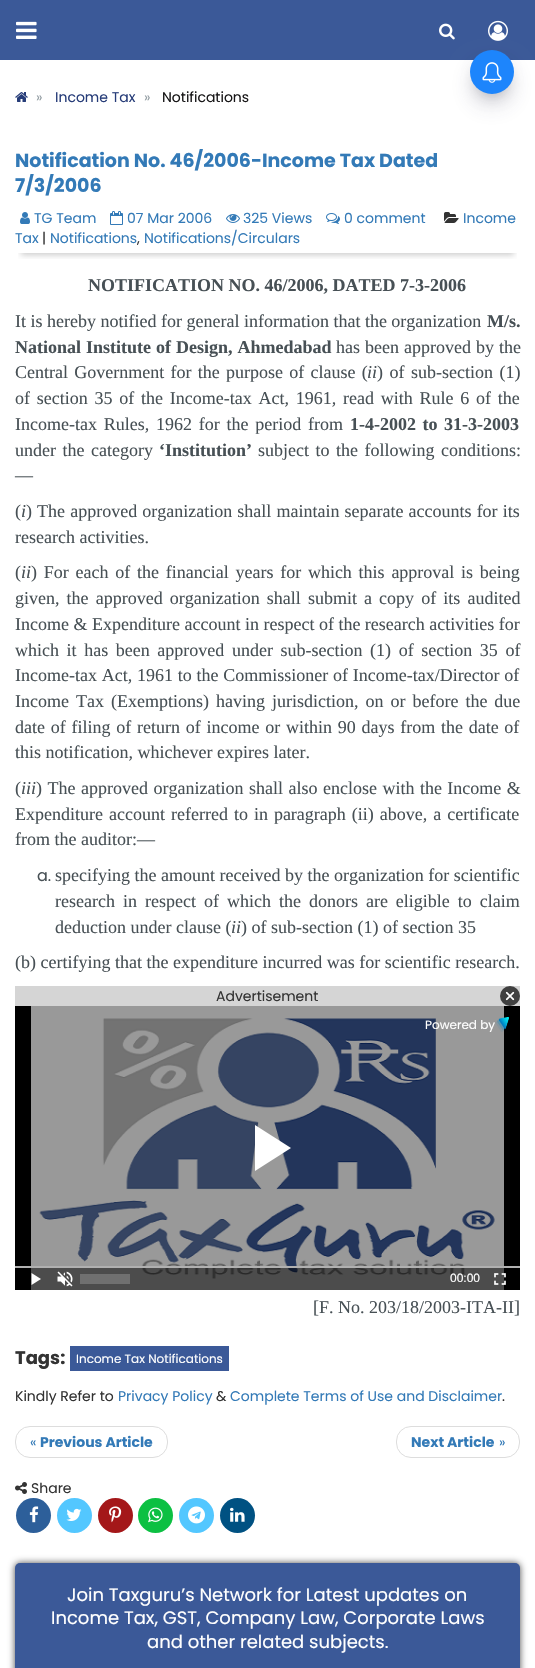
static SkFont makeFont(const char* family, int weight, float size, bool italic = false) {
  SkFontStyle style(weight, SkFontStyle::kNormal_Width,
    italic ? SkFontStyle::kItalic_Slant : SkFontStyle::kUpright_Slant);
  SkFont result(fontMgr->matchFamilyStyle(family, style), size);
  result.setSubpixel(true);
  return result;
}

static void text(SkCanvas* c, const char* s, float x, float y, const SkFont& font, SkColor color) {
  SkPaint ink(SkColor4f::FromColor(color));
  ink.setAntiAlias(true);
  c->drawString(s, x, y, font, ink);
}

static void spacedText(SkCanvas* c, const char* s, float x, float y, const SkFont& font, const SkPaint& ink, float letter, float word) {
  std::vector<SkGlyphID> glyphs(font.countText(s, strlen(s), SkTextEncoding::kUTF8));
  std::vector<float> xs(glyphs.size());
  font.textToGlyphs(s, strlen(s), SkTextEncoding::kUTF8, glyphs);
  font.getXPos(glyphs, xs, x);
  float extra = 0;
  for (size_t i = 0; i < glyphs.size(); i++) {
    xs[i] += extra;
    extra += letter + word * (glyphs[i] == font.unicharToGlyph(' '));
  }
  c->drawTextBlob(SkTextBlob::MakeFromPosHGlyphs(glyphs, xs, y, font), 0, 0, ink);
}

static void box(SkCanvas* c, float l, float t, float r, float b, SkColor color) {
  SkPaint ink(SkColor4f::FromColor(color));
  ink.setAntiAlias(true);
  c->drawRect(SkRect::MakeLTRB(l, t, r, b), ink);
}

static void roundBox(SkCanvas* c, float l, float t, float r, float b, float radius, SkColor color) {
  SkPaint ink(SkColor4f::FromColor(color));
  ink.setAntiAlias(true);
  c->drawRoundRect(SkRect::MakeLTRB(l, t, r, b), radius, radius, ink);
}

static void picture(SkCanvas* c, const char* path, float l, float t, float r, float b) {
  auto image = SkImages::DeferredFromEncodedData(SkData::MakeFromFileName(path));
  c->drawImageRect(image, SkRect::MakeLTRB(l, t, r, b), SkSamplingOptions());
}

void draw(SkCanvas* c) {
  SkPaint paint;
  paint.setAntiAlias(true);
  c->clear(0xffffffff);
  box(c, 0, 0, 535, 60, 0xff3b5998);
  picture(c, "img_01.png", 16, 21, 37, 39);
  picture(c, "img_02.png", 439, 23, 455, 40);
  picture(c, "img_03.png", 488, 20, 508, 41);
  picture(c, "img_04.png", 15, 92, 28, 102);
  SkFont face1 = makeFont("Poppins", 400, 14);
  text(c, "»", 36, 102, face1, 0xff959fa5);
  text(c, "Income Tax", 55, 102, face1, 0xff263c78);
  text(c, "»", 144, 102, face1, 0xff959fa5);
  text(c, "Notifications", 162, 102, face1, 0xff171617);
  paint.setColor(0x4d000000);
  paint.setMaskFilter(SkMaskFilter::MakeBlur(kNormal_SkBlurStyle, 8));
  c->drawRoundRect(SkRect::MakeLTRB(478, 66, 506, 94), 14, 14, paint);
  paint.setMaskFilter(nullptr);
  paint.setColor(0x4032325d);
  paint.setMaskFilter(SkMaskFilter::MakeBlur(kNormal_SkBlurStyle, 13.5f));
  c->drawRoundRect(SkRect::MakeLTRB(475, 68, 509, 102), 17, 17, paint);
  paint.setMaskFilter(nullptr);
  paint.setColor(0xff1d85fc);
  c->drawCircle(492, 72, 22, paint);
  picture(c, "img_05.png", 482, 62, 502, 83);
  c->save();
  c->clipRect(SkRect::MakeLTRB(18, 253, 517, 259));
  paint.setColor(0x33000000);
  paint.setMaskFilter(SkMaskFilter::MakeBlur(kNormal_SkBlurStyle, 3));
  c->drawRect(SkRect::MakeLTRB(21, 158, 514, 255), paint);
  paint.setMaskFilter(nullptr);
  c->restore();
  SkFont face2 = makeFont("Poppins", 700, 19);
  text(c, "Notification No. 46/2006-Income Tax Dated", 15, 167, face2, 0xff337ab7);
  text(c, "7/3/2006", 15, 192, face2, 0xff337ab7);
  picture(c, "img_06.png", 20, 212, 30, 224);
  text(c, "TG Team", 34, 223, face1, 0xff337ab7);
  picture(c, "img_07.png", 110, 211, 123, 225);
  text(c, "07 Mar 2006", 127, 223, face1, 0xff337ab7);
  picture(c, "img_08.png", 226, 214, 240, 223);
  text(c, "325 Views", 243, 223, face1, 0xff337ab7);
  picture(c, "img_09.png", 326, 213, 340, 224);
  text(c, "0 comment", 344, 223, face1, 0xff337ab7);
  picture(c, "img_10.png", 444, 212, 459, 223);
  text(c, "Income", 463, 223, face1, 0xff337ab7);
  text(c, "Tax", 15, 243, face1, 0xff337ab7);
  text(c, "|", 42, 243, face1, 0xff333333);
  text(c, "Notifications", 50, 243, face1, 0xff337ab7);
  text(c, ",", 137, 243, face1, 0xff333333);
  text(c, "Notifications/Circulars", 144, 243, face1, 0xff337ab7);
  SkFont face3 = makeFont("Liberation Serif", 700, 18);
  text(c, "NOTIFICATION NO. 46/2006, DATED 7-3-2006", 88, 291, face3, 0xff475055);
  SkFont face4 = makeFont("Liberation Serif", 400, 18);
  text(c, "It is hereby notified for general information that the organization", 15, 327, face4, 0xff475055);
  text(c, "M/s.", 487, 327, face3, 0xff475055);
  paint.setColor(0xff475055);
  spacedText(c, "National Institute of Design, Ahmedabad", 15, 353, face3, paint, 0, 0.5f);
  spacedText(c, "has been approved by the", 336, 353, face4, paint, 0, 0.5f);
  spacedText(c, "Central Government for the purpose of clause (", 15, 378, face4, paint, 0, 1.75f);
  SkFont face5 = makeFont("Liberation Serif", 400, 18, true);
  text(c, "ii", 367, 378, face5, 0xff475055);
  spacedText(c, ") of sub-section (1)", 377, 378, face4, paint, 0, 2);
  spacedText(c, "of section 35 of the Income-tax Act, 1961, read with Rule 6 of the", 15, 404, face4, paint, 0, 2.25f);
  spacedText(c, "Income-tax Rules, 1962 for the period from", 15, 430, face4, paint, 0, 2.25f);
  spacedText(c, "1-4-2002 to 31-3-2003", 350, 430, face3, paint, 0, 2);
  spacedText(c, "under the category", 15, 456, face4, paint, 0, 2);
  text(c, "‘Institution’", 159, 456, face3, 0xff475055);
  spacedText(c, "subject to the following conditions:", 258, 456, face4, paint, 0, 2);
  text(c, "—", 15, 481, face4, 0xff475055);
  text(c, "(", 15, 517, face4, 0xff475055);
  text(c, "i", 21, 517, face5, 0xff475055);
  spacedText(c, ") The approved organization shall maintain separate accounts for its", 26, 517, face4, paint, 0, 0.6f);
  text(c, "research activities.", 15, 543, face4, 0xff475055);
  text(c, "(", 15, 578, face4, 0xff475055);
  text(c, "ii", 21, 578, face5, 0xff475055);
  spacedText(c, ") For each of the financial years for which this approval is being", 31, 578, face4, paint, 0, 2.25f);
  spacedText(c, "given, the approved organization shall submit a copy of its audited", 15, 604, face4, paint, 0, 2.6f);
  text(c, "Income & Expenditure account in respect of the research activities for", 15, 630, face4, 0xff475055);
  spacedText(c, "which it has been approved under sub-section (1) of section 35 of", 15, 656, face4, paint, 0, 3.1f);
  spacedText(c, "Income-tax Act, 1961 to the Commissioner of Income-tax/Director of", 15, 681, face4, paint, 0, 0.25f);
  spacedText(c, "Income Tax (Exemptions) having jurisdiction, on or before the due", 15, 707, face4, paint, 0, 2.5f);
  spacedText(c, "date of filing of return of income or within 90 days from the date of", 15, 733, face4, paint, 0, 1.25f);
  text(c, "this notification, whichever expires later.", 15, 758, face4, 0xff475055);
  text(c, "(", 15, 794, face4, 0xff475055);
  text(c, "iii", 21, 794, face5, 0xff475055);
  spacedText(c, ") The approved organization shall also enclose with the Income &", 36, 794, face4, paint, 0, 1);
  spacedText(c, "Expenditure account referred to in paragraph (ii) above, a certificate", 15, 820, face4, paint, 0, 1.5f);
  text(c, "from the auditor:—", 15, 845, face4, 0xff475055);
  SkFont face6 = makeFont("Poppins", 400, 16);
  text(c, "a.", 37, 881, face6, 0xff475055);
  text(c, "specifying the amount received by the organization for scientific", 55, 881, face4, 0xff475055);
  spacedText(c, "research in respect of which the donors are eligible to claim", 55, 907, face4, paint, 0, 3.5f);
  text(c, "deduction under clause (", 55, 933, face4, 0xff475055);
  text(c, "ii", 231, 933, face5, 0xff475055);
  text(c, ") of sub-section (1) of section 35", 241, 933, face4, 0xff475055);
  text(c, "(b) certifying that the expenditure incurred was for scientific research.", 15, 968, face4, 0xff475055);
  box(c, 15, 986, 520, 1006, 0xffd5d5d5);
  text(c, "Advertisement", 216, 1001, face1, 0xff333333);
  paint.setColor(0xff404040);
  c->drawCircle(510, 996, 10, paint);
  picture(c, "img_11.png", 505, 991, 515, 1001);
  box(c, 15, 1006, 520, 1290, 0xff000000);
  picture(c, "img_12.png", 31, 1006, 504, 1290);
  SkFont face7 = makeFont("Poppins", 400, 12);
  text(c, "Powered by", 425, 1029, face7, 0xffffffff);
  picture(c, "img_13.png", 495, 1017, 509, 1032);
  paint.setColor(0xffffffff);
  c->drawPath(SkPathBuilder().moveTo(255, 1125).lineTo(255, 1171).lineTo(291, 1148).close().detach(), paint);
  box(c, 15, 1266, 520, 1268, 0xffb0b0b0);
  box(c, 31, 1268, 504, 1290, 0x80000000);
  c->drawPath(SkPathBuilder().moveTo(31.5f, 1273).lineTo(31.5f, 1285).lineTo(41, 1279).close().detach(), paint);
  picture(c, "img_14.png", 57, 1271, 73, 1287);
  box(c, 80, 1274, 130, 1284, 0xff707070);
  SkFont face8 = makeFont("Liberation Sans", 400, 12);
  text(c, "00:00", 450, 1282, face8, 0xffffffff);
  picture(c, "img_15.png", 494, 1273, 506, 1285);
  text(c, "[F. No. 203/18/2003-ITA-II]", 313, 1313, face4, 0xff475055);
  SkFont face9 = makeFont("Poppins", 700, 18);
  text(c, "Tags:", 15, 1364, face9, 0xff333333);
  box(c, 70, 1346, 229, 1371, 0xff3b5998);
  text(c, "Income Tax Notifications", 76, 1363, face7, 0xffffffff);
  text(c, "Kindly Refer to", 15, 1401, face1, 0xff333333);
  text(c, "Privacy Policy", 118, 1401, face1, 0xff337ab7);
  text(c, "&", 216, 1401, face1, 0xff333333);
  text(c, "Complete Terms of Use and Disclaimer", 230, 1401, face1, 0xff337ab7);
  text(c, ".", 502, 1401, face1, 0xff333333);
  paint.setStyle(SkPaint::kStroke_Style);
  paint.setStrokeWidth(1);
  paint.setColor(0xffdddddd);
  c->drawRoundRect(SkRect::MakeLTRB(15.5f, 1426.5f, 167.5f, 1457.5f), 14.5f, 14.5f, paint);
  text(c, "«", 30, 1447, face1, 0xff337ab7);
  SkFont face10 = makeFont("Poppins", 700, 14);
  text(c, "Previous Article", 40, 1447, face10, 0xff337ab7);
  c->drawRoundRect(SkRect::MakeLTRB(396.5f, 1426.5f, 519.5f, 1457.5f), 14.5f, 14.5f, paint);
  text(c, "Next Article", 411, 1447, face10, 0xff337ab7);
  text(c, "»", 499, 1447, face1, 0xff337ab7);
  picture(c, "img_16.png", 15, 1482, 27, 1494);
  text(c, "Share", 31, 1493, face1, 0xff333333);
  paint.setStyle(SkPaint::kFill_Style);
  paint.setColor(0xff2d5f9a);
  c->drawCircle(33.5f, 1515.5f, 17.5f, paint);
  picture(c, "img_17.png", 29, 1506, 39, 1523);
  paint.setColor(0xff53c7ff);
  c->drawCircle(74.5f, 1515.5f, 17.5f, paint);
  picture(c, "img_18.png", 66, 1508, 82, 1521);
  paint.setColor(0xffa41719);
  c->drawCircle(115.5f, 1515.5f, 17.5f, paint);
  picture(c, "img_19.png", 109, 1506, 122, 1523);
  paint.setColor(0xff0cc042);
  c->drawCircle(155.5f, 1515.5f, 17.5f, paint);
  picture(c, "img_20.png", 148, 1507, 163, 1523);
  paint.setColor(0xff53c7ff);
  c->drawCircle(196.5f, 1515.5f, 17.5f, paint);
  picture(c, "img_21.png", 188, 1506, 205, 1524);
  paint.setColor(0xff005182);
  c->drawCircle(237.5f, 1515.5f, 17.5f, paint);
  picture(c, "img_22.png", 230, 1507, 245, 1522);
  paint.setColor(0xb3000000);
  paint.setMaskFilter(SkMaskFilter::MakeBlur(kNormal_SkBlurStyle, 3.5f));
  c->drawRoundRect(SkRect::MakeLTRB(15, 1563, 520, 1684), 5, 5, paint);
  paint.setMaskFilter(nullptr);
  roundBox(c, 15, 1563, 520, 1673, 5, 0xff3b5998);
  SkFont face11 = makeFont("Poppins", 400, 18);
  text(c, "Join Taxguru’s Network for Latest updates on", 67, 1601, face11, 0xffffffff);
  text(c, "Income Tax, GST, Company Law, Corporate Laws", 51, 1624, face11, 0xffffffff);
  text(c, "and other related subjects.", 147, 1648, face11, 0xffffffff);
}
